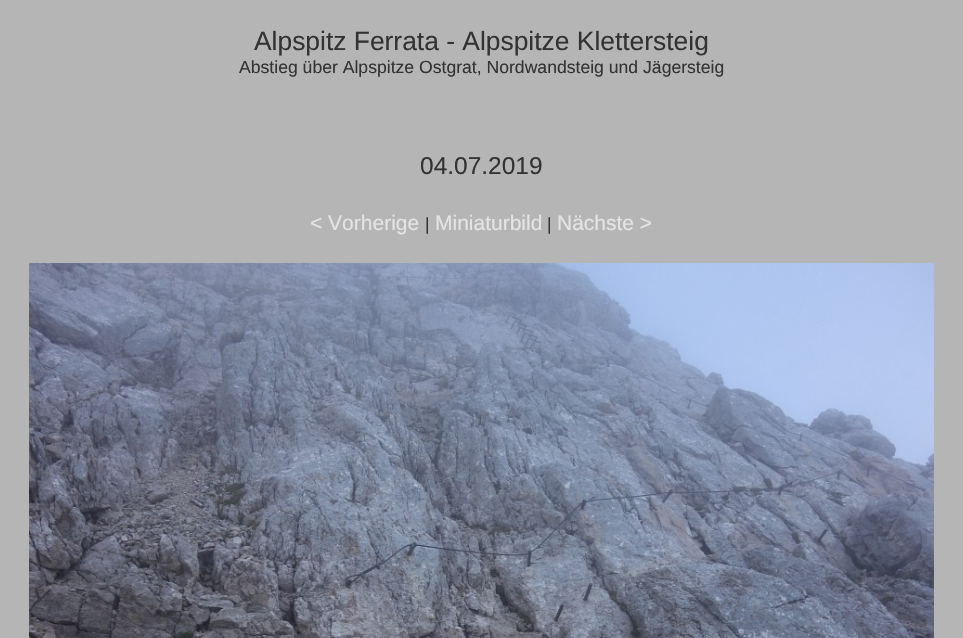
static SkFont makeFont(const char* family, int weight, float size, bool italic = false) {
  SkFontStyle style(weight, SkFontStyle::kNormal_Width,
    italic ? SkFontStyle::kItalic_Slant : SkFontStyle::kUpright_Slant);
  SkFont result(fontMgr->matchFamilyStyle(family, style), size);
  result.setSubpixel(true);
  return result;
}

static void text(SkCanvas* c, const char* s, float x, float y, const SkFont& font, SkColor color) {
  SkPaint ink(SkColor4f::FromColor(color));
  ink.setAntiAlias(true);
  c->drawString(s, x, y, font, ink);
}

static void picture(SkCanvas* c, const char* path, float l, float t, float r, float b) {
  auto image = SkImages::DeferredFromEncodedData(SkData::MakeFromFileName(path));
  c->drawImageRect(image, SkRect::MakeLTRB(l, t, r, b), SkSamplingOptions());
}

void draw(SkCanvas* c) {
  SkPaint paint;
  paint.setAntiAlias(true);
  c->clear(0xffb5b5b5);
  SkFont face1 = makeFont("Liberation Sans", 400, 26.4f);
  text(c, "Alpspitz Ferrata - Alpspitze Klettersteig", 254, 50, face1, 0xff333333);
  SkFont face2 = makeFont("Liberation Sans", 400, 17.6f);
  text(c, "Abstieg über Alpspitze Ostgrat, Nordwandsteig und Jägersteig", 239, 73, face2, 0xff333333);
  SkFont face3 = makeFont("Liberation Sans", 400, 24.5f);
  text(c, "04.07.2019", 420, 174, face3, 0xff333333);
  SkFont face4 = makeFont("Liberation Sans", 400, 21);
  text(c, "< Vorherige", 310, 230, face4, 0xffe4e4e4);
  text(c, "|", 425, 230, face2, 0xff333333);
  text(c, "Miniaturbild", 435, 230, face4, 0xffe4e4e4);
  text(c, "|", 547, 230, face2, 0xff333333);
  text(c, "Nächste >", 557, 230, face4, 0xffe4e4e4);
  picture(c, "img_01.png", 29, 263, 934, 638);
}
